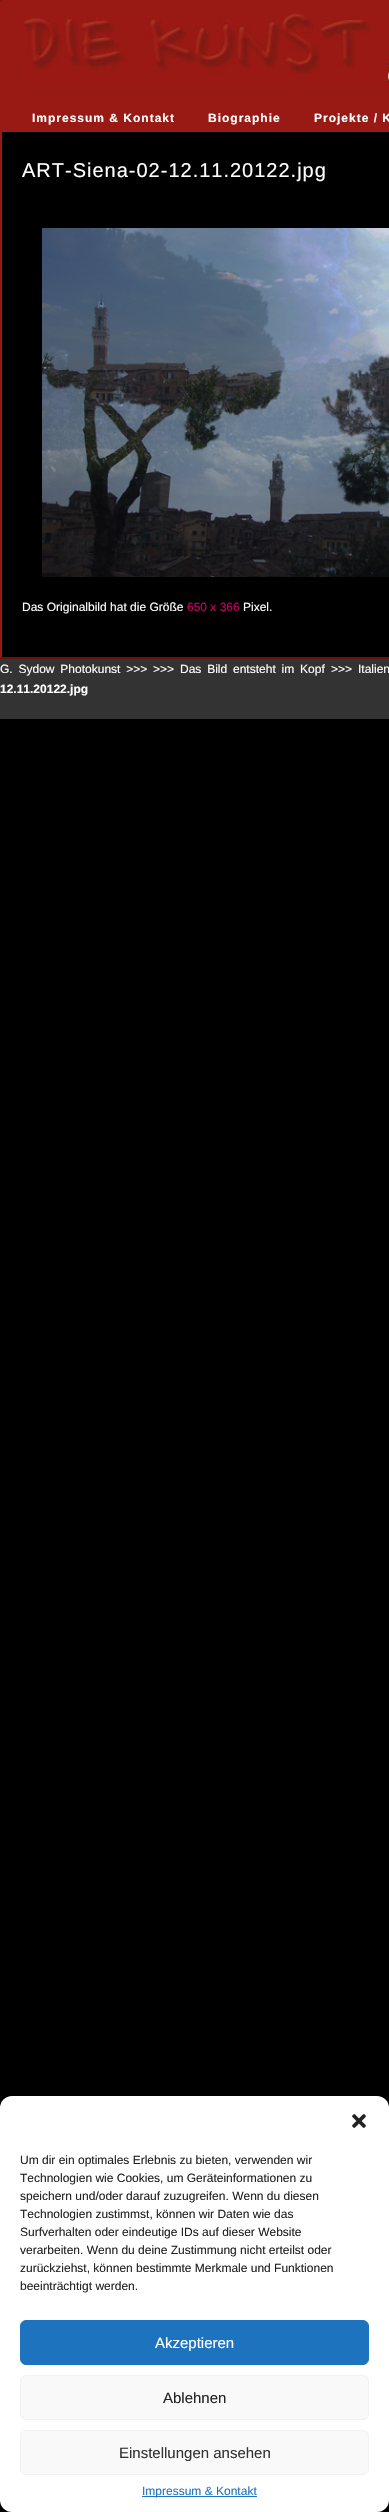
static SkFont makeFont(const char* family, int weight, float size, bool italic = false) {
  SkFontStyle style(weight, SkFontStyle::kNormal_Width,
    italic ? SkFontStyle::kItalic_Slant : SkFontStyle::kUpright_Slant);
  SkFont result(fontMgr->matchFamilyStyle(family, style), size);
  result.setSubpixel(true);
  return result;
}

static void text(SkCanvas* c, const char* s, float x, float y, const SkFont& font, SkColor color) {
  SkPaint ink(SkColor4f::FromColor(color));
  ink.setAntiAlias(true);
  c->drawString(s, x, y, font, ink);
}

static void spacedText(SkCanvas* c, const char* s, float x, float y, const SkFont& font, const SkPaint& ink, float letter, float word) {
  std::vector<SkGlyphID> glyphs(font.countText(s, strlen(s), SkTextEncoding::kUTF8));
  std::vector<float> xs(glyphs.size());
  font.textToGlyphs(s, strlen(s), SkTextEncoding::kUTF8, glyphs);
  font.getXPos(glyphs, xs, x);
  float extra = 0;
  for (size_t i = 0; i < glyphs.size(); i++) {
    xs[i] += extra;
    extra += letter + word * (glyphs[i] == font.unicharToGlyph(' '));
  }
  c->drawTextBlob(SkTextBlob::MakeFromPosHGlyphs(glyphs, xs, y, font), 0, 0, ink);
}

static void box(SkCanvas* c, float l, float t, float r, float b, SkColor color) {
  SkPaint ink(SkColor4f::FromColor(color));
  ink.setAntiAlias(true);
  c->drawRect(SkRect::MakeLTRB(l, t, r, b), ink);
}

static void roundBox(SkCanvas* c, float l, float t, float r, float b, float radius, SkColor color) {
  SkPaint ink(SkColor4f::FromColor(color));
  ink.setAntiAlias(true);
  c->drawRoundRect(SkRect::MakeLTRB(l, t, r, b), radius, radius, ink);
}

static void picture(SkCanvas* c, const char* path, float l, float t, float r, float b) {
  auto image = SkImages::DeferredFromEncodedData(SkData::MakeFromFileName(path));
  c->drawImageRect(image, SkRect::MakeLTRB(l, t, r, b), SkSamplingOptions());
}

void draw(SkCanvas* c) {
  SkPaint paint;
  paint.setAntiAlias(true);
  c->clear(0xff000000);
  paint.setColor(0xff991914);
  c->drawPath(SkPathBuilder().moveTo(0, 0).lineTo(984, 0).lineTo(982, 2).lineTo(2, 2).close().detach(), paint);
  paint.setColor(0xff66110d);
  c->drawPath(SkPathBuilder().moveTo(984, 659).lineTo(0, 659).lineTo(2, 657).lineTo(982, 657).close().detach(), paint);
  paint.setColor(0xff991914);
  c->drawPath(SkPathBuilder().moveTo(0, 659).lineTo(0, 0).lineTo(2, 2).lineTo(2, 657).close().detach(), paint);
  box(c, 2, 2, 389, 132, 0xff991914);
  picture(c, "img_01.png", 24, 13, 389, 90);
  SkFont face1 = makeFont("Liberation Sans", 700, 12);
  paint.setColor(0xffffffff);
  spacedText(c, "Impressum & Kontakt", 32, 122, face1, paint, 1, 0);
  spacedText(c, "Biographie", 208, 122, face1, paint, 1, 0);
  spacedText(c, "Projekte / K", 314, 122, face1, paint, 1, 0);
  SkFont face2 = makeFont("Liberation Sans", 400, 20);
  spacedText(c, "ART-Siena-02-12.11.20122.jpg", 22, 177, face2, paint, 1, 0);
  picture(c, "img_02.png", 42, 228, 389, 577);
  SkFont face3 = makeFont("Liberation Sans", 400, 12);
  text(c, "Das Originalbild hat die Größe", 22, 611, face3, 0xffffffff);
  text(c, "650 x 366", 187, 611, face3, 0xffcc0066);
  text(c, "Pixel.", 243, 611, face3, 0xffffffff);
  box(c, 0, 659, 389, 719, 0xff333333);
  spacedText(c, "G. Sydow Photokunst >>>", 0, 673, face3, paint, 0, 2.5f);
  text(c, ">>>", 153, 673, face3, 0xffffffff);
  spacedText(c, "Das Bild entsteht im Kopf", 180, 673, face3, paint, 0, 2.5f);
  text(c, ">>>", 331, 673, face3, 0xffffffff);
  spacedText(c, "Italien", 358, 673, face3, paint, 0, 2.5f);
  text(c, "12.11.20122.jpg", 0, 693, face1, 0xffffffff);
  roundBox(c, 0, 2096, 389, 2512, 12, 0xffffffff);
  picture(c, "img_03.png", 352, 2114, 366, 2128);
  text(c, "Um dir ein optimales Erlebnis zu bieten, verwenden wir", 20, 2164, face3, 0xff222222);
  text(c, "Technologien wie Cookies, um Geräteinformationen zu", 20, 2182, face3, 0xff222222);
  text(c, "speichern und/oder darauf zuzugreifen. Wenn du diesen", 20, 2200, face3, 0xff222222);
  text(c, "Technologien zustimmst, können wir Daten wie das", 20, 2218, face3, 0xff222222);
  text(c, "Surfverhalten oder eindeutige IDs auf dieser Website", 20, 2236, face3, 0xff222222);
  text(c, "verarbeiten. Wenn du deine Zustimmung nicht erteilst oder", 20, 2254, face3, 0xff222222);
  text(c, "zurückziehst, können bestimmte Merkmale und Funktionen", 20, 2272, face3, 0xff222222);
  text(c, "beeinträchtigt werden.", 20, 2290, face3, 0xff222222);
  paint.setColor(0xff1e73be);
  c->drawRoundRect(SkRect::MakeLTRB(20.5f, 2320.5f, 368.5f, 2364.5f), 5.5f, 5.5f, paint);
  paint.setStyle(SkPaint::kStroke_Style);
  paint.setStrokeWidth(1);
  c->drawRoundRect(SkRect::MakeLTRB(20.5f, 2320.5f, 368.5f, 2364.5f), 5.5f, 5.5f, paint);
  SkFont face4 = makeFont("Liberation Sans", 400, 15);
  text(c, "Akzeptieren", 155, 2348, face4, 0xffffffff);
  paint.setStyle(SkPaint::kFill_Style);
  paint.setColor(0xfff9f9f9);
  c->drawRoundRect(SkRect::MakeLTRB(20.5f, 2375.5f, 368.5f, 2419.5f), 5.5f, 5.5f, paint);
  paint.setStyle(SkPaint::kStroke_Style);
  paint.setColor(0xfff2f2f2);
  c->drawRoundRect(SkRect::MakeLTRB(20.5f, 2375.5f, 368.5f, 2419.5f), 5.5f, 5.5f, paint);
  text(c, "Ablehnen", 163, 2403, face4, 0xff222222);
  paint.setStyle(SkPaint::kFill_Style);
  paint.setColor(0xfff9f9f9);
  c->drawRoundRect(SkRect::MakeLTRB(20.5f, 2430.5f, 368.5f, 2474.5f), 5.5f, 5.5f, paint);
  paint.setStyle(SkPaint::kStroke_Style);
  paint.setColor(0xfff2f2f2);
  c->drawRoundRect(SkRect::MakeLTRB(20.5f, 2430.5f, 368.5f, 2474.5f), 5.5f, 5.5f, paint);
  text(c, "Einstellungen ansehen", 119, 2458, face4, 0xff333333);
  box(c, 142, 2496, 257, 2497, 0xff1e73be);
  text(c, "Impressum & Kontakt", 142, 2495, face3, 0xff1e73be);
}
